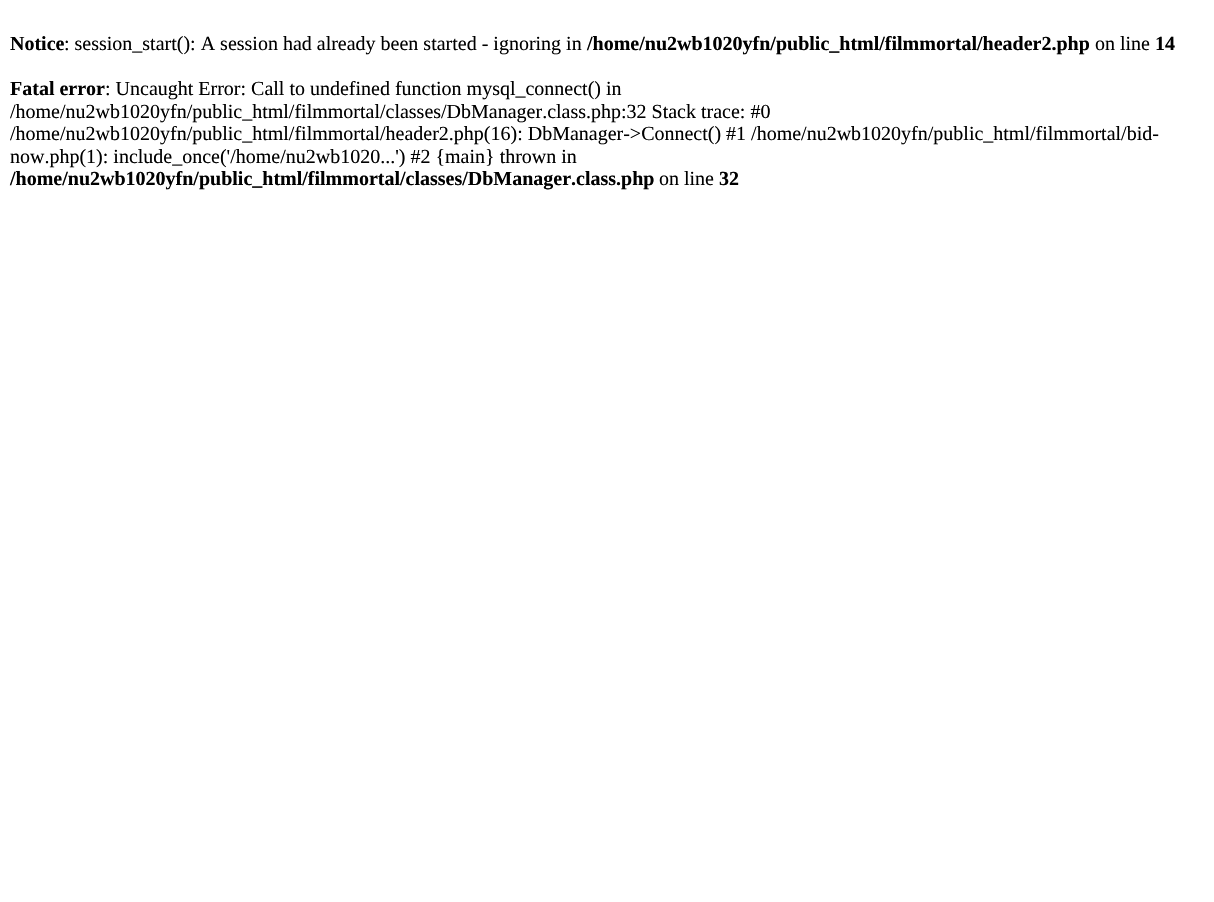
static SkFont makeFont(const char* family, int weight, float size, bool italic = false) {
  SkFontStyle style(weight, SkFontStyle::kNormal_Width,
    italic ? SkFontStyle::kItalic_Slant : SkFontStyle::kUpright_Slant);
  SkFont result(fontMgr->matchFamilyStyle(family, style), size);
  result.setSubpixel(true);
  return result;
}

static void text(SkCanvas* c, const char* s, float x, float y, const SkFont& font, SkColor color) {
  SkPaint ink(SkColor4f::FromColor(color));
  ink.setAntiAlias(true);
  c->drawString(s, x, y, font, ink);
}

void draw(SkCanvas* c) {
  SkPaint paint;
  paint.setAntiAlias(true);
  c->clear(0xffffffff);
  SkFont face1 = makeFont("Liberation Serif", 700, 20);
  text(c, "Notice", 10, 50, face1, 0xff000000);
  SkFont face2 = makeFont("Liberation Serif", 400, 20);
  text(c, ": session_start(): A session had already been started - ignoring in", 64, 50, face2, 0xff000000);
  text(c, "/home/nu2wb1020yfn/public_html/filmmortal/header2.php", 587, 50, face1, 0xff000000);
  text(c, "on line", 1095, 50, face2, 0xff000000);
  text(c, "14", 1155, 50, face1, 0xff000000);
  text(c, "Fatal error", 10, 95, face1, 0xff000000);
  text(c, ": Uncaught Error: Call to undefined function mysql_connect() in", 105, 95, face2, 0xff000000);
  text(c, "/home/nu2wb1020yfn/public_html/filmmortal/classes/DbManager.class.php:32 Stack trace: #0", 10, 118, face2, 0xff000000);
  text(c, "/home/nu2wb1020yfn/public_html/filmmortal/header2.php(16): DbManager->Connect() #1 /home/nu2wb1020yfn/public_html/filmmortal/bid-", 10, 140, face2, 0xff000000);
  text(c, "now.php(1): include_once('/home/nu2wb1020...') #2 {main} thrown in", 10, 163, face2, 0xff000000);
  text(c, "/home/nu2wb1020yfn/public_html/filmmortal/classes/DbManager.class.php", 10, 185, face1, 0xff000000);
  text(c, "on line", 659, 185, face2, 0xff000000);
  text(c, "32", 719, 185, face1, 0xff000000);
}
